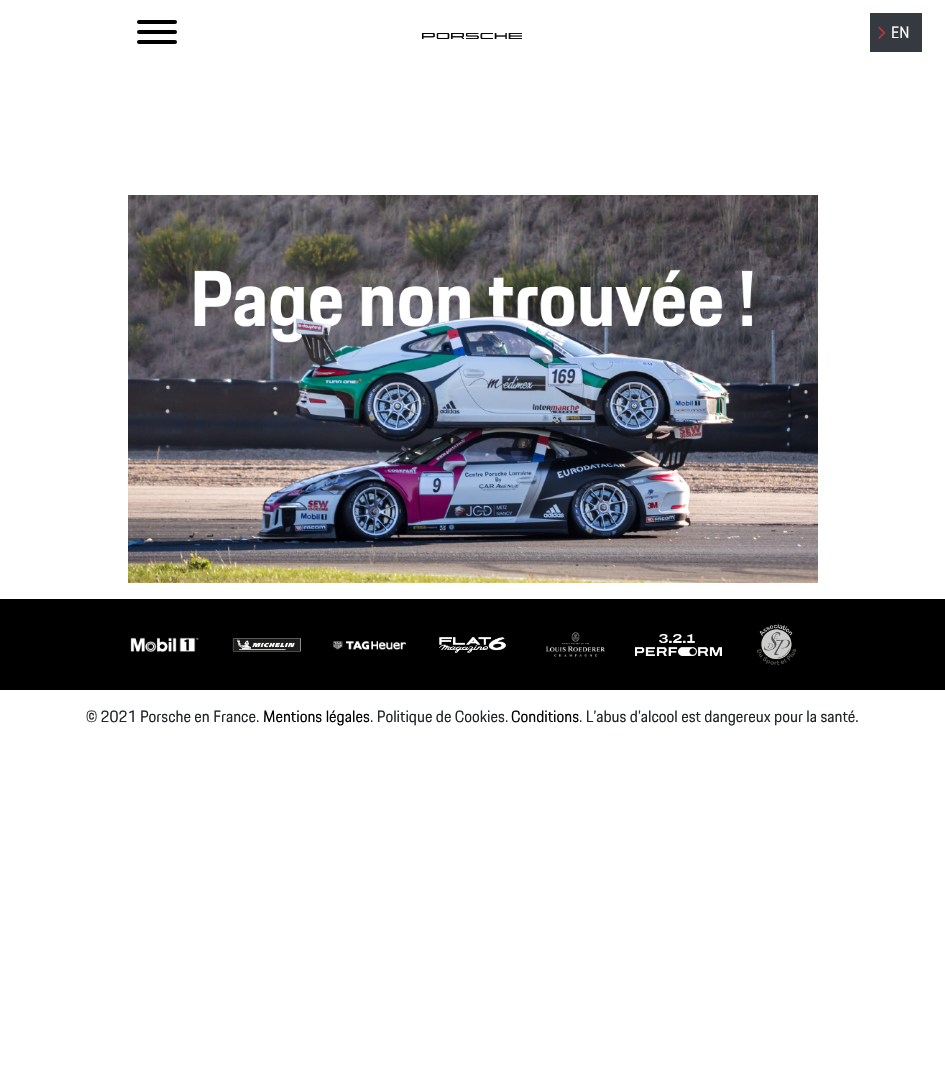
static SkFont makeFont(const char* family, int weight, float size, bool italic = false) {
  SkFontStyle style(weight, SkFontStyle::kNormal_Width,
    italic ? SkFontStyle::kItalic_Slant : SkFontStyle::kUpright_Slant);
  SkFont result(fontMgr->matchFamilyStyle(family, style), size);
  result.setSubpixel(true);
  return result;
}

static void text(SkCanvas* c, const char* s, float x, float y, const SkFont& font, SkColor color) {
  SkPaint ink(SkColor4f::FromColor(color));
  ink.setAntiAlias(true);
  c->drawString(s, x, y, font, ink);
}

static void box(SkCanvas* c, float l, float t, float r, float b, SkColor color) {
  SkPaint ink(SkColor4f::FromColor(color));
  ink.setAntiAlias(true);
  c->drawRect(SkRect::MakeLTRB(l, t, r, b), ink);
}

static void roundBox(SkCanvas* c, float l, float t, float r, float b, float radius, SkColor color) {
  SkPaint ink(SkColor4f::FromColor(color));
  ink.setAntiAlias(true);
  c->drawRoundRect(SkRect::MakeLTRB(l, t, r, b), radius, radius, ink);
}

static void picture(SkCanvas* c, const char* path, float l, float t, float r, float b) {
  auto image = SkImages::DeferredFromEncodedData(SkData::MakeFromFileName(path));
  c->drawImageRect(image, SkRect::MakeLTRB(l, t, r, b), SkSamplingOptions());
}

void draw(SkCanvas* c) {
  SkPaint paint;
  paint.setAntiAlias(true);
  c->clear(0xffffffff);
  roundBox(c, 137, 20, 177, 24, 2, 0xff000000);
  roundBox(c, 137, 30, 177, 34, 2, 0xff000000);
  roundBox(c, 137, 40, 177, 44, 2, 0xff000000);
  picture(c, "img_01.png", 422, 33, 522, 39);
  box(c, 870, 13, 922, 52, 0xff343a40);
  picture(c, "img_02.png", 878, 26, 886, 39);
  SkFont face1 = makeFont("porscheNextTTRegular", 400, 16);
  text(c, "EN", 891, 38, face1, 0xffffffff);
  picture(c, "img_03.png", 128, 195, 818, 583);
  box(c, 0, 599, 945, 690, 0xff000000);
  picture(c, "img_04.png", 130, 637, 199, 653);
  picture(c, "img_05.png", 232, 638, 301, 652);
  picture(c, "img_06.png", 332, 641, 407, 650);
  picture(c, "img_07.png", 439, 637, 506, 653);
  picture(c, "img_08.png", 546, 632, 605, 657);
  picture(c, "img_09.png", 635, 634, 722, 656);
  picture(c, "img_10.png", 756, 623, 796, 666);
  text(c, "© 2021 Porsche en France.", 86, 722, face1, 0xff212529);
  text(c, "Mentions légales", 263, 722, face1, 0xff000000);
  text(c, ". Politique de Cookies.", 370, 722, face1, 0xff212529);
  text(c, "Conditions", 511, 722, face1, 0xff000000);
  text(c, ". L’abus d’alcool est dangereux pour la santé.", 579, 722, face1, 0xff212529);
}
